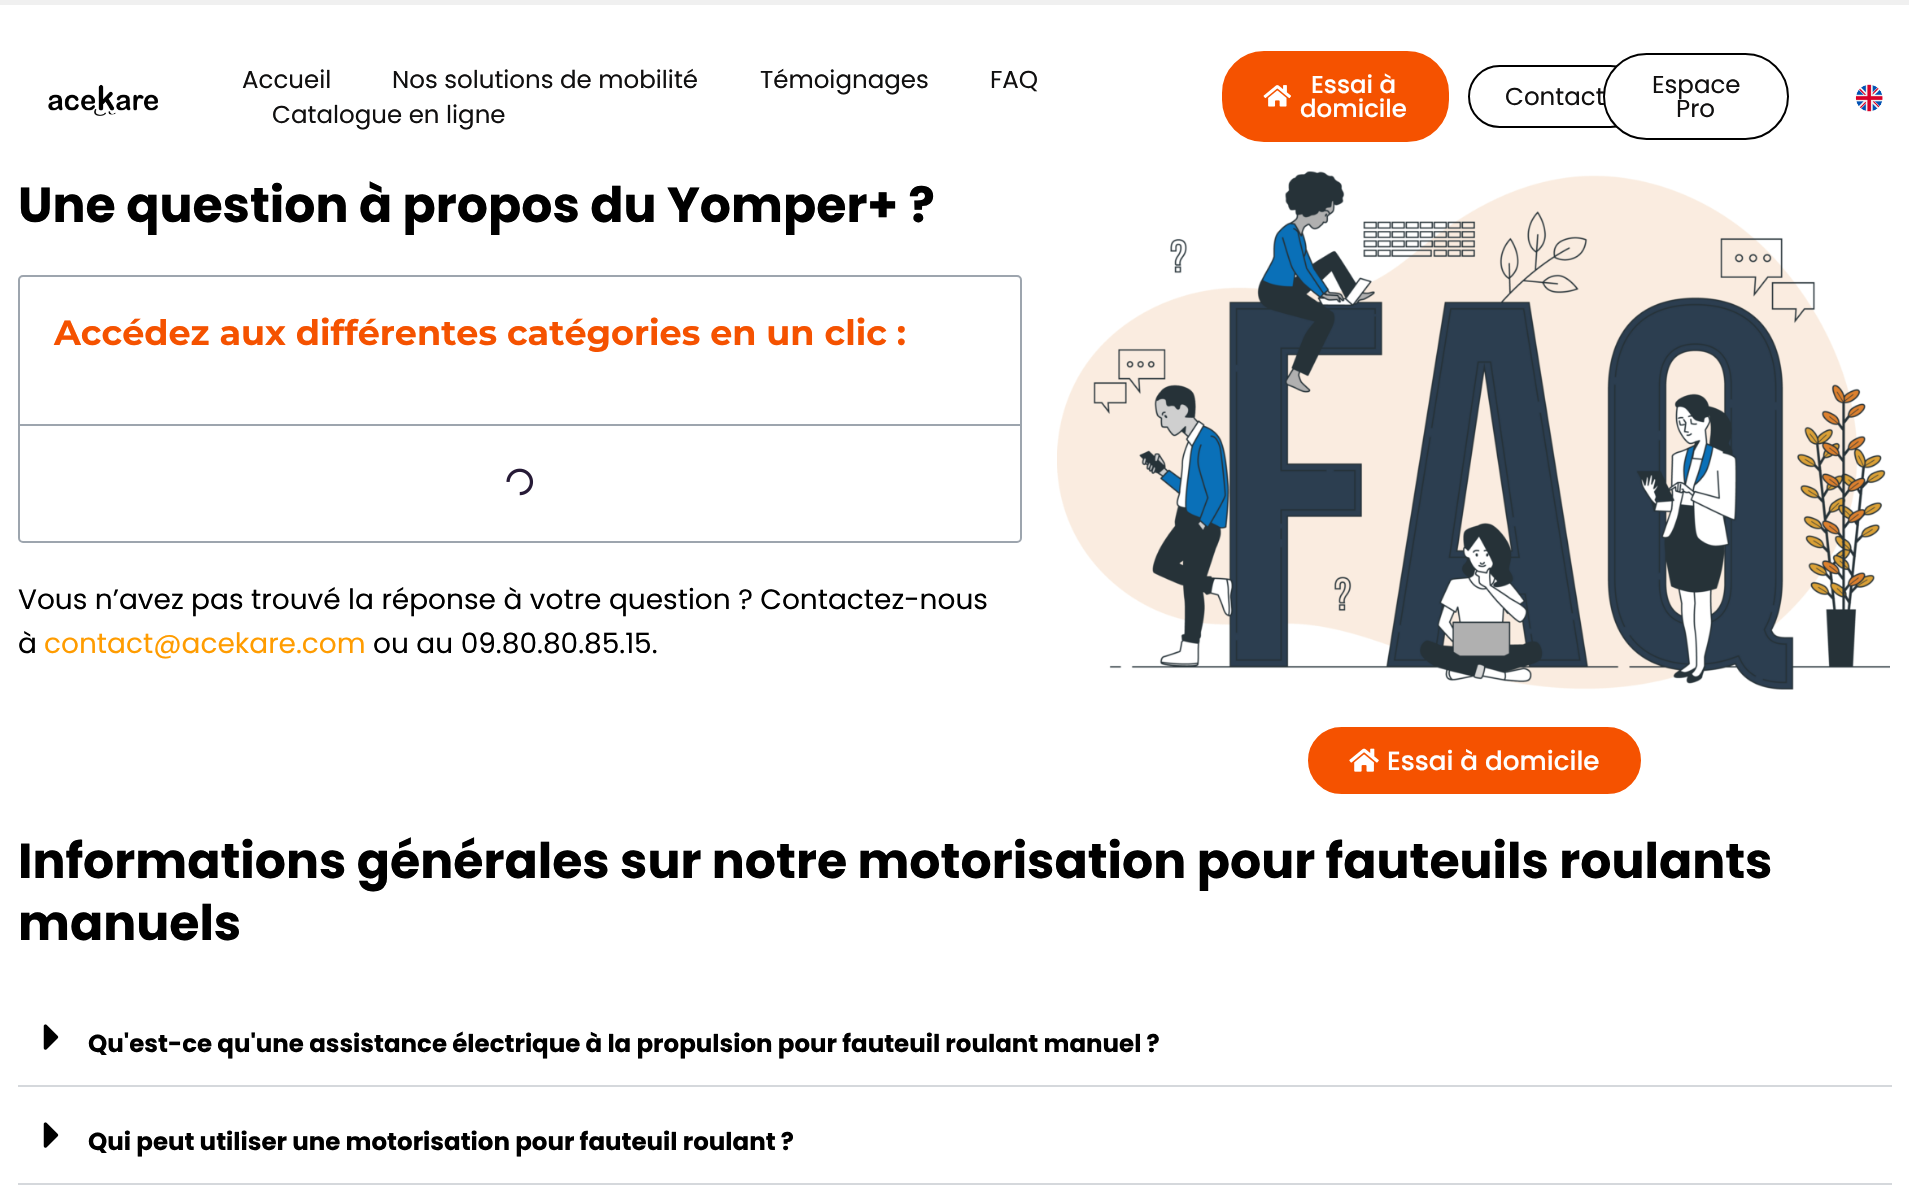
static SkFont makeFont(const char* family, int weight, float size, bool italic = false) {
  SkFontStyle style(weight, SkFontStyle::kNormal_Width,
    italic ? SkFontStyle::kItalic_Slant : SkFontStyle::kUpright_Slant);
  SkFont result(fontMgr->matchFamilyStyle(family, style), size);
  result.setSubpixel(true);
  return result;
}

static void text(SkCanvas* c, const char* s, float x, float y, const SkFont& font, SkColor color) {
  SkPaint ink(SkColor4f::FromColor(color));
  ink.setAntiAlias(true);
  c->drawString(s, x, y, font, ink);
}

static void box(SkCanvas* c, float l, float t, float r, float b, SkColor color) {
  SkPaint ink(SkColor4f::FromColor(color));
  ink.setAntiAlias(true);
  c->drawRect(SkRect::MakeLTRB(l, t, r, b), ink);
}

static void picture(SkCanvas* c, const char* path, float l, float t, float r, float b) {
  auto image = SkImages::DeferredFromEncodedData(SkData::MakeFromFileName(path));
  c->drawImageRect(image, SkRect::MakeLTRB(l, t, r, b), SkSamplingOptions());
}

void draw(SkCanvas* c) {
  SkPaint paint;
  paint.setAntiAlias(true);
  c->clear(0xffffffff);
  box(c, 0, 0, 1909, 5, 0xfff0f0f0);
  picture(c, "img_01.png", 48, 84, 158, 116);
  SkFont face1 = makeFont("Poppins", 400, 24.5f);
  text(c, "Accueil", 242, 88, face1, 0xff111010);
  text(c, "Nos solutions de mobilité", 392, 88, face1, 0xff111010);
  text(c, "Témoignages", 760, 88, face1, 0xff111010);
  text(c, "FAQ", 990, 88, face1, 0xff111010);
  text(c, "Catalogue en ligne", 272, 123, face1, 0xff111010);
  paint.setColor(0xfff55200);
  c->drawRoundRect(SkRect::MakeLTRB(1221, 50, 1450, 143), 43, 43, paint);
  paint.setStyle(SkPaint::kStroke_Style);
  paint.setStrokeWidth(2);
  paint.setColor(0xffffffff);
  c->drawRoundRect(SkRect::MakeLTRB(1221, 50, 1450, 143), 43, 43, paint);
  picture(c, "img_02.png", 1263, 85, 1291, 107);
  SkFont face2 = makeFont("Poppins", 500, 24.5f);
  text(c, "Essai à", 1311, 93, face2, 0xffffffff);
  text(c, "domicile", 1300, 117, face2, 0xffffffff);
  paint.setColor(0xff000000);
  c->drawRoundRect(SkRect::MakeLTRB(1469, 66, 1641, 127), 30.5f, 30.5f, paint);
  text(c, "Contact", 1505, 105, face1, 0xff111010);
  paint.setStyle(SkPaint::kFill_Style);
  paint.setColor(0xffffffff);
  c->drawRoundRect(SkRect::MakeLTRB(1604, 54, 1788, 139), 42.5f, 42.5f, paint);
  paint.setStyle(SkPaint::kStroke_Style);
  paint.setColor(0xff000000);
  c->drawRoundRect(SkRect::MakeLTRB(1604, 54, 1788, 139), 42.5f, 42.5f, paint);
  text(c, "Espace", 1652, 93, face1, 0xff111010);
  text(c, "Pro", 1676, 117, face1, 0xff111010);
  picture(c, "img_03.png", 1855, 84, 1883, 112);
  SkFont face3 = makeFont("Poppins", 700, 49);
  text(c, "Une question à propos du Yomper+ ?", 18, 222, face3, 0xff000000);
  paint.setColor(0xff9da5ae);
  c->drawRoundRect(SkRect::MakeLTRB(19, 276, 1021, 542), 4, 4, paint);
  box(c, 19, 424, 1020, 426, 0xff9da5ae);
  SkFont face4 = makeFont("Montserrat", 700, 35);
  text(c, "Accédez aux différentes catégories en un clic :", 54, 345, face4, 0xfff55200);
  picture(c, "img_04.png", 506, 468, 534, 496);
  SkFont face5 = makeFont("Poppins", 400, 28);
  text(c, "Vous n’avez pas trouvé la réponse à votre question ? Contactez-nous", 18, 609, face5, 0xff000000);
  text(c, "à", 18, 653, face5, 0xff000000);
  text(c, "contact@acekare.com", 44, 653, face5, 0xffff9c00);
  text(c, "ou au 09.80.80.85.15.", 373, 653, face5, 0xff000000);
  picture(c, "img_05.png", 1057, 171, 1890, 690);
  paint.setStyle(SkPaint::kFill_Style);
  paint.setColor(0xfff55200);
  c->drawRoundRect(SkRect::MakeLTRB(1307, 726, 1642, 795), 34.5f, 34.5f, paint);
  paint.setStyle(SkPaint::kStroke_Style);
  paint.setColor(0xffffffff);
  c->drawRoundRect(SkRect::MakeLTRB(1307, 726, 1642, 795), 34.5f, 34.5f, paint);
  picture(c, "img_06.png", 1349, 748, 1379, 772);
  SkFont face6 = makeFont("Poppins", 500, 26.25f);
  text(c, "Essai à domicile", 1387, 770, face6, 0xffffffff);
  text(c, "Informations générales sur notre motorisation pour fauteuils roulants", 18, 878, face3, 0xff000000);
  text(c, "manuels", 18, 940, face3, 0xff000000);
  box(c, 18, 1085, 1892, 1087, 0xffd5d8dc);
  picture(c, "img_07.png", 43, 1024, 59, 1050);
  SkFont face7 = makeFont("Poppins", 700, 24.5f);
  text(c, "Qu'est-ce qu'une assistance électrique à la propulsion pour fauteuil roulant manuel ?", 88, 1052, face7, 0xff000000);
  box(c, 18, 1183, 1892, 1185, 0xffd5d8dc);
  picture(c, "img_07.png", 43, 1122, 59, 1148);
  text(c, "Qui peut utiliser une motorisation pour fauteuil roulant ?", 88, 1150, face7, 0xff000000);
}
